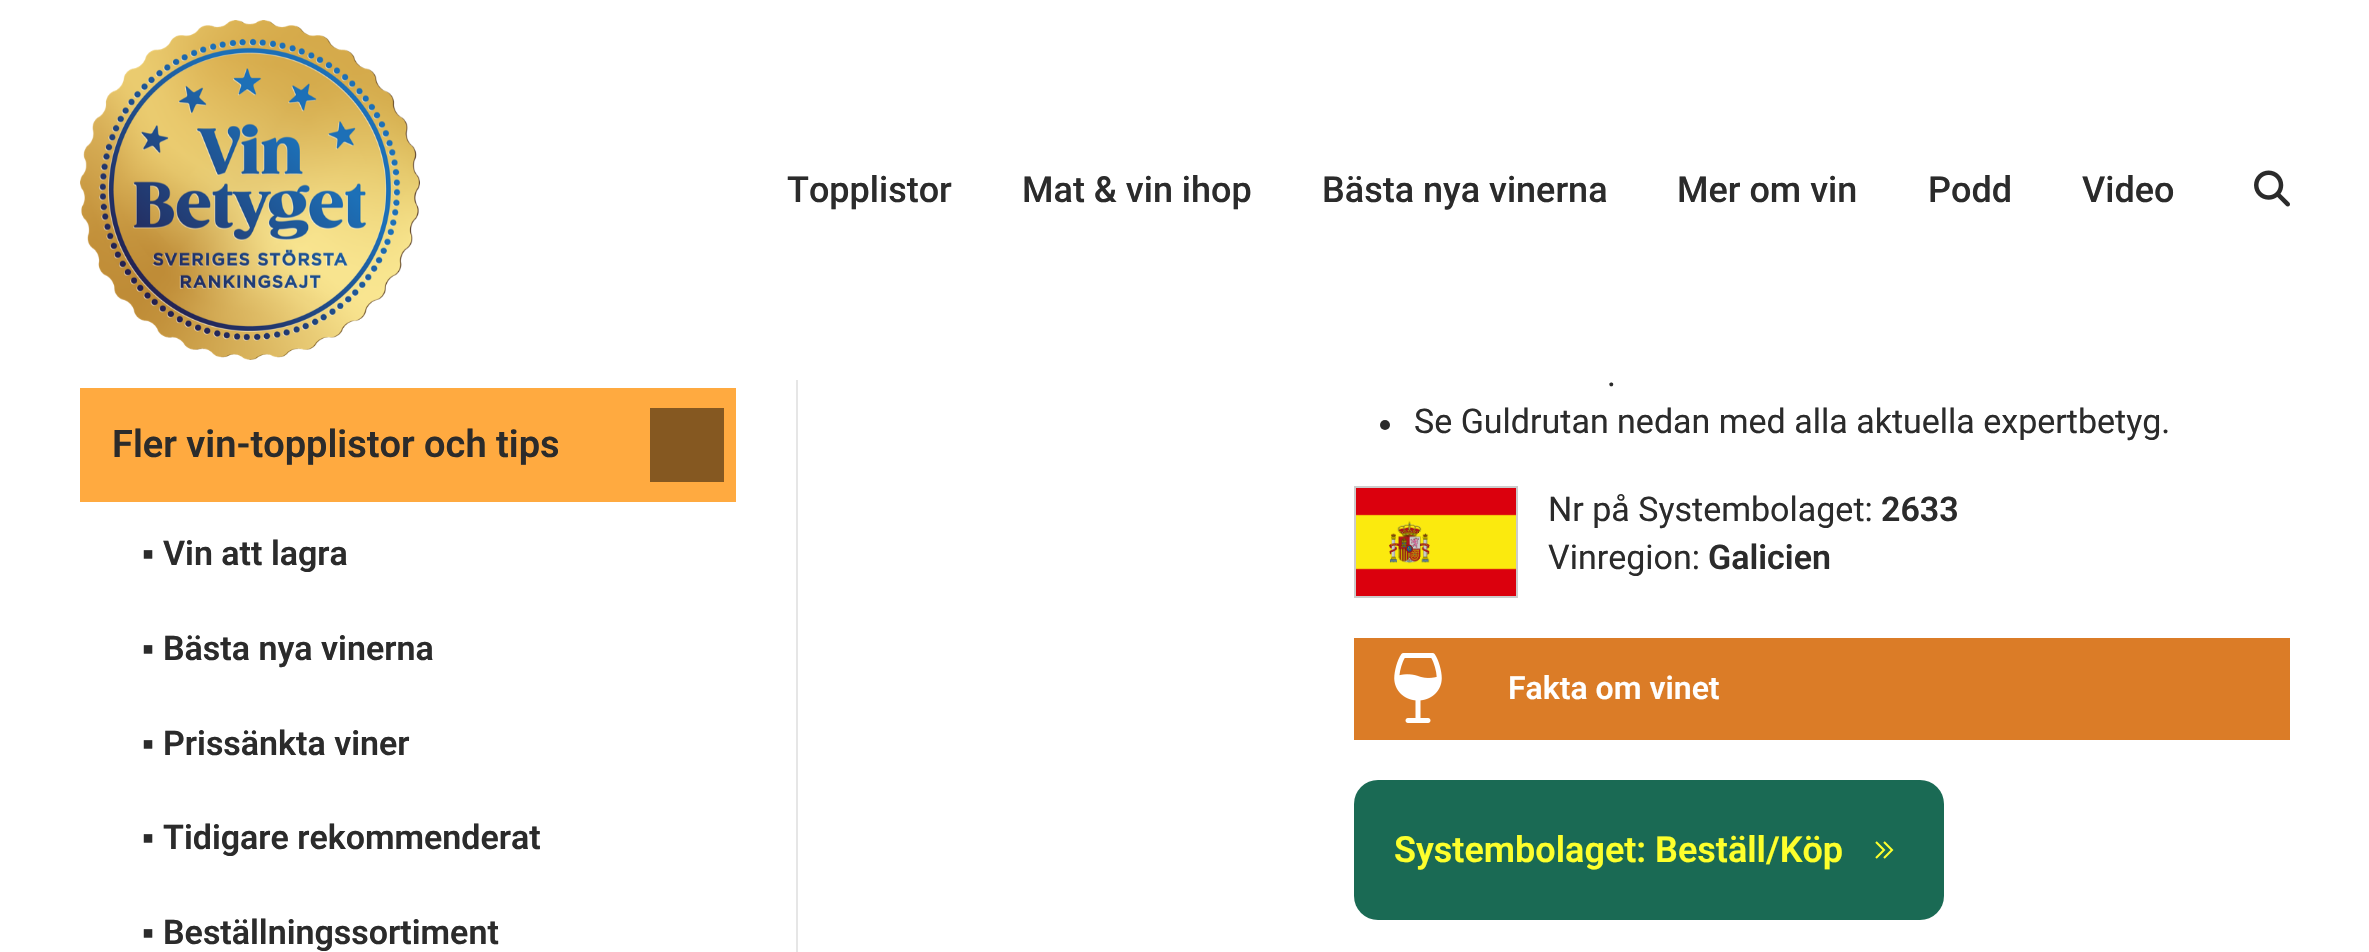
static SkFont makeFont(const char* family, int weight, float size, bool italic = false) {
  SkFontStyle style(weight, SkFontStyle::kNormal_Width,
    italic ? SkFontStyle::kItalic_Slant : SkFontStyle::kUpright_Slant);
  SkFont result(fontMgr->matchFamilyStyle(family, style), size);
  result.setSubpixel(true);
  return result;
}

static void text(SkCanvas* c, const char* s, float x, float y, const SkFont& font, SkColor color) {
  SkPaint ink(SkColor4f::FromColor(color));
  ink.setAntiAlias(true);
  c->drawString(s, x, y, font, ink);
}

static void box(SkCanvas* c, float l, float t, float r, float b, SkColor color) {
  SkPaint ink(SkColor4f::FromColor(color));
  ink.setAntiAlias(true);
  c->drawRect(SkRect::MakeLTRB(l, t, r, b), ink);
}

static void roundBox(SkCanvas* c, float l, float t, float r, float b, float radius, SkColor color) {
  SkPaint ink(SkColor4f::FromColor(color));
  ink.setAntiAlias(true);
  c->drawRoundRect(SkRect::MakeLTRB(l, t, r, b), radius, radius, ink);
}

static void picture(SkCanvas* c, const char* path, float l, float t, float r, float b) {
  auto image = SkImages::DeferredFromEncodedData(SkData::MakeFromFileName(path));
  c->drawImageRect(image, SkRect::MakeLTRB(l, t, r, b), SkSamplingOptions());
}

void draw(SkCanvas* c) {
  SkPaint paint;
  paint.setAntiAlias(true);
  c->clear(0xffffffff);
  picture(c, "img_01.png", 80, 20, 420, 360);
  SkFont face1 = makeFont("Roboto", 500, 36);
  text(c, "Topplistor", 787, 202, face1, 0xff2b2b2b);
  text(c, "Mat & vin ihop", 1022, 202, face1, 0xff2b2b2b);
  text(c, "Bästa nya vinerna", 1322, 202, face1, 0xff2b2b2b);
  text(c, "Mer om vin", 1677, 202, face1, 0xff2b2b2b);
  text(c, "Podd", 1928, 202, face1, 0xff2b2b2b);
  text(c, "Video", 2082, 202, face1, 0xff2b2b2b);
  picture(c, "img_02.png", 2254, 170, 2290, 207);
  box(c, 80, 388, 736, 502, 0xffffaa40);
  SkFont face2 = makeFont("Roboto", 600, 38);
  text(c, "Fler vin-topplistor och tips", 112, 457, face2, 0xff2b2b2b);
  box(c, 650, 408, 724, 482, 0xff855821);
  SkFont face3 = makeFont("Liberation Serif", 700, 34);
  text(c, "▪", 142, 565, face3, 0xff2b2b2b);
  SkFont face4 = makeFont("Roboto", 600, 34);
  text(c, "Vin att lagra", 163, 565, face4, 0xff2b2b2b);
  text(c, "▪", 142, 660, face3, 0xff2b2b2b);
  text(c, "Bästa nya vinerna", 163, 660, face4, 0xff2b2b2b);
  text(c, "▪", 142, 755, face3, 0xff2b2b2b);
  text(c, "Prissänkta viner", 163, 755, face4, 0xff2b2b2b);
  text(c, "▪", 142, 849, face3, 0xff2b2b2b);
  text(c, "Tidigare rekommenderat", 163, 849, face4, 0xff2b2b2b);
  text(c, "▪", 142, 944, face3, 0xff2b2b2b);
  text(c, "Beställningssortiment", 163, 944, face4, 0xff2b2b2b);
  box(c, 796, 380, 798, 952, 0xffe6e6e6);
  SkFont face5 = makeFont("Roboto", 400, 34);
  text(c, ".", 1607, 386, face5, 0xff2b2b2b);
  paint.setColor(0xff292929);
  c->drawCircle(1385, 425, 5, paint);
  text(c, "Se Guldrutan nedan med alla aktuella expertbetyg.", 1414, 433, face5, 0xff2b2b2b);
  paint.setStyle(SkPaint::kStroke_Style);
  paint.setStrokeWidth(2);
  paint.setColor(0xffcccccc);
  c->drawRect(SkRect::MakeLTRB(1355, 487, 1517, 597), paint);
  picture(c, "img_03.png", 1356, 488, 1516, 596);
  text(c, "Nr på Systembolaget:", 1548, 521, face5, 0xff2b2b2b);
  text(c, "2633", 1881, 521, face4, 0xff2b2b2b);
  text(c, "Vinregion:", 1548, 569, face5, 0xff2b2b2b);
  text(c, "Galicien", 1708, 569, face4, 0xff2b2b2b);
  box(c, 1354, 638, 2290, 740, 0xffdb7c27);
  picture(c, "img_04.png", 1394, 653, 1442, 723);
  SkFont face6 = makeFont("Roboto", 600, 32);
  text(c, "Fakta om vinet", 1508, 699, face6, 0xffffffff);
  roundBox(c, 1354, 780, 1944, 920, 24, 0xff1a6a54);
  SkFont face7 = makeFont("Roboto", 600, 36);
  text(c, "Systembolaget: Beställ/Köp", 1394, 862, face7, 0xfffdff2c);
  paint.setStrokeWidth(2.1f);
  paint.setColor(0xfffdff2c);
  c->drawPath(SkPathBuilder().moveTo(1884, 842).lineTo(1892, 850).lineTo(1884, 858).moveTo(1876, 842).lineTo(1884, 850).lineTo(1876, 858).detach(), paint);
}
